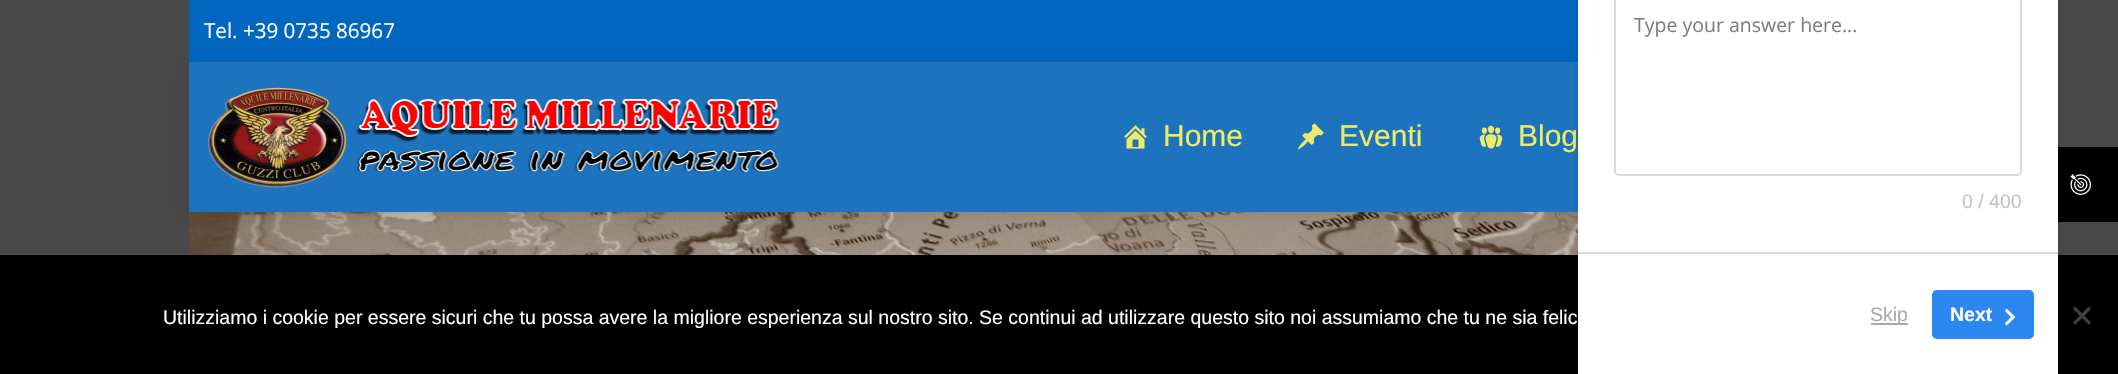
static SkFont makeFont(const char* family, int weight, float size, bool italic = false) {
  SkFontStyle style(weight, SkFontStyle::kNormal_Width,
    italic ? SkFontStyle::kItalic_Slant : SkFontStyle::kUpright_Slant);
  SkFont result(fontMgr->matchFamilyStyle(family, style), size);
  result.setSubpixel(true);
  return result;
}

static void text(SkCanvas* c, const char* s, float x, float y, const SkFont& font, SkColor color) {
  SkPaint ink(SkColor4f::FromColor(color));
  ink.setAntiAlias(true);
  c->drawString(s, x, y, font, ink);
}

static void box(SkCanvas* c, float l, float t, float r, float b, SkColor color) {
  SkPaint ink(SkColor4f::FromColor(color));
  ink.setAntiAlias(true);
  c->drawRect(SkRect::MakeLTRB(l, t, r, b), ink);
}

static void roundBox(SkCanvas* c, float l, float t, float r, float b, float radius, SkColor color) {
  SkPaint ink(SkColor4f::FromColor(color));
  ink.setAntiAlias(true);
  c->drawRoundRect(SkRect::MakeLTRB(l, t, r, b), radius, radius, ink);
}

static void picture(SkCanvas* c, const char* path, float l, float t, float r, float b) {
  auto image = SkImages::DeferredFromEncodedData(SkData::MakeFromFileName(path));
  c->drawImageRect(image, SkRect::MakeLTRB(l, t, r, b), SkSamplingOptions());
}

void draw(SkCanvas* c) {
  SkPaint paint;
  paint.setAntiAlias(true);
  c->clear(0xff494949);
  box(c, 189, 0, 1578, 62, 0xff0066bf);
  SkFont face1 = makeFont("Open Sans", 400, 20.6f);
  text(c, "Tel. +39 0735 86967", 204, 38, face1, 0xffffffff);
  picture(c, "img_05.png", 189, 212, 1578, 255);
  paint.setColor(0x1a000000);
  paint.setMaskFilter(SkMaskFilter::MakeBlur(kNormal_SkBlurStyle, 7.5f));
  c->drawRect(SkRect::MakeLTRB(189, 66, 1929, 216), paint);
  paint.setMaskFilter(nullptr);
  box(c, 189, 62, 1578, 212, 0xff1e73be);
  picture(c, "img_01.png", 207, 87, 780, 188);
  picture(c, "img_02.png", 1124, 125, 1147, 149);
  SkFont face2 = makeFont("Liberation Sans", 400, 30);
  text(c, "Home", 1163, 146, face2, 0xffeded65);
  picture(c, "img_03.png", 1298, 123, 1324, 150);
  text(c, "Eventi", 1339, 146, face2, 0xffeded65);
  picture(c, "img_04.png", 1479, 125, 1503, 149);
  text(c, "Blog", 1518, 146, face2, 0xffeded65);
  box(c, 2058, 147, 2118, 222, 0xff000000);
  box(c, 0, 255, 2118, 374, 0xff000000);
  paint.setColor(0x12000000);
  paint.setMaskFilter(SkMaskFilter::MakeBlur(kNormal_SkBlurStyle, 2));
  c->drawRoundRect(SkRect::MakeLTRB(1575, -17, 2061, 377), 11, 11, paint);
  paint.setMaskFilter(nullptr);
  box(c, 1578, 0, 2058, 374, 0xffffffff);
  box(c, 1578, 252, 2058, 254, 0xffd9d9d9);
  paint.setStyle(SkPaint::kStroke_Style);
  paint.setStrokeWidth(2);
  paint.setColor(0xffdadada);
  c->drawRoundRect(SkRect::MakeLTRB(1615, -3, 2021, 175), 4, 4, paint);
  SkFont face3 = makeFont("Open Sans", 400, 19.5f);
  text(c, "Type your answer here...", 1634, 32, face3, 0xff7e7e7e);
  SkFont face4 = makeFont("Liberation Sans", 400, 19.5f);
  text(c, "0 / 400", 1962, 208, face4, 0xffc4c4c4);
  box(c, 1871, 323, 1908, 325, 0xffaaaaaa);
  text(c, "Skip", 1870, 321, face4, 0xffaaaaaa);
  roundBox(c, 1932, 290, 2034, 339, 5, 0xff2d87f1);
  SkFont face5 = makeFont("Liberation Sans", 700, 19.5f);
  text(c, "Next", 1950, 321, face5, 0xffffffff);
  picture(c, "img_06.png", 2005, 309, 2015, 326);
  picture(c, "img_07.png", 2070, 174, 2091, 195);
  text(c, "Utilizziamo i cookie per essere sicuri che tu possa avere la migliore esperienza sul nostro sito. Se continui ad utilizzare questo sito noi assumiamo che tu ne sia felic", 163, 324, face4, 0xffffffff);
  paint.setStyle(SkPaint::kFill_Style);
  paint.setColor(0xff404040);
  c->drawPath(SkPathBuilder().moveTo(2089, 306.5f).lineTo(2091, 309).lineTo(2075, 325).lineTo(2073, 322.5f).close().detach(), paint);
  c->drawPath(SkPathBuilder().moveTo(2073, 309).lineTo(2075, 306.5f).lineTo(2091, 322.5f).lineTo(2089, 325).close().detach(), paint);
}
